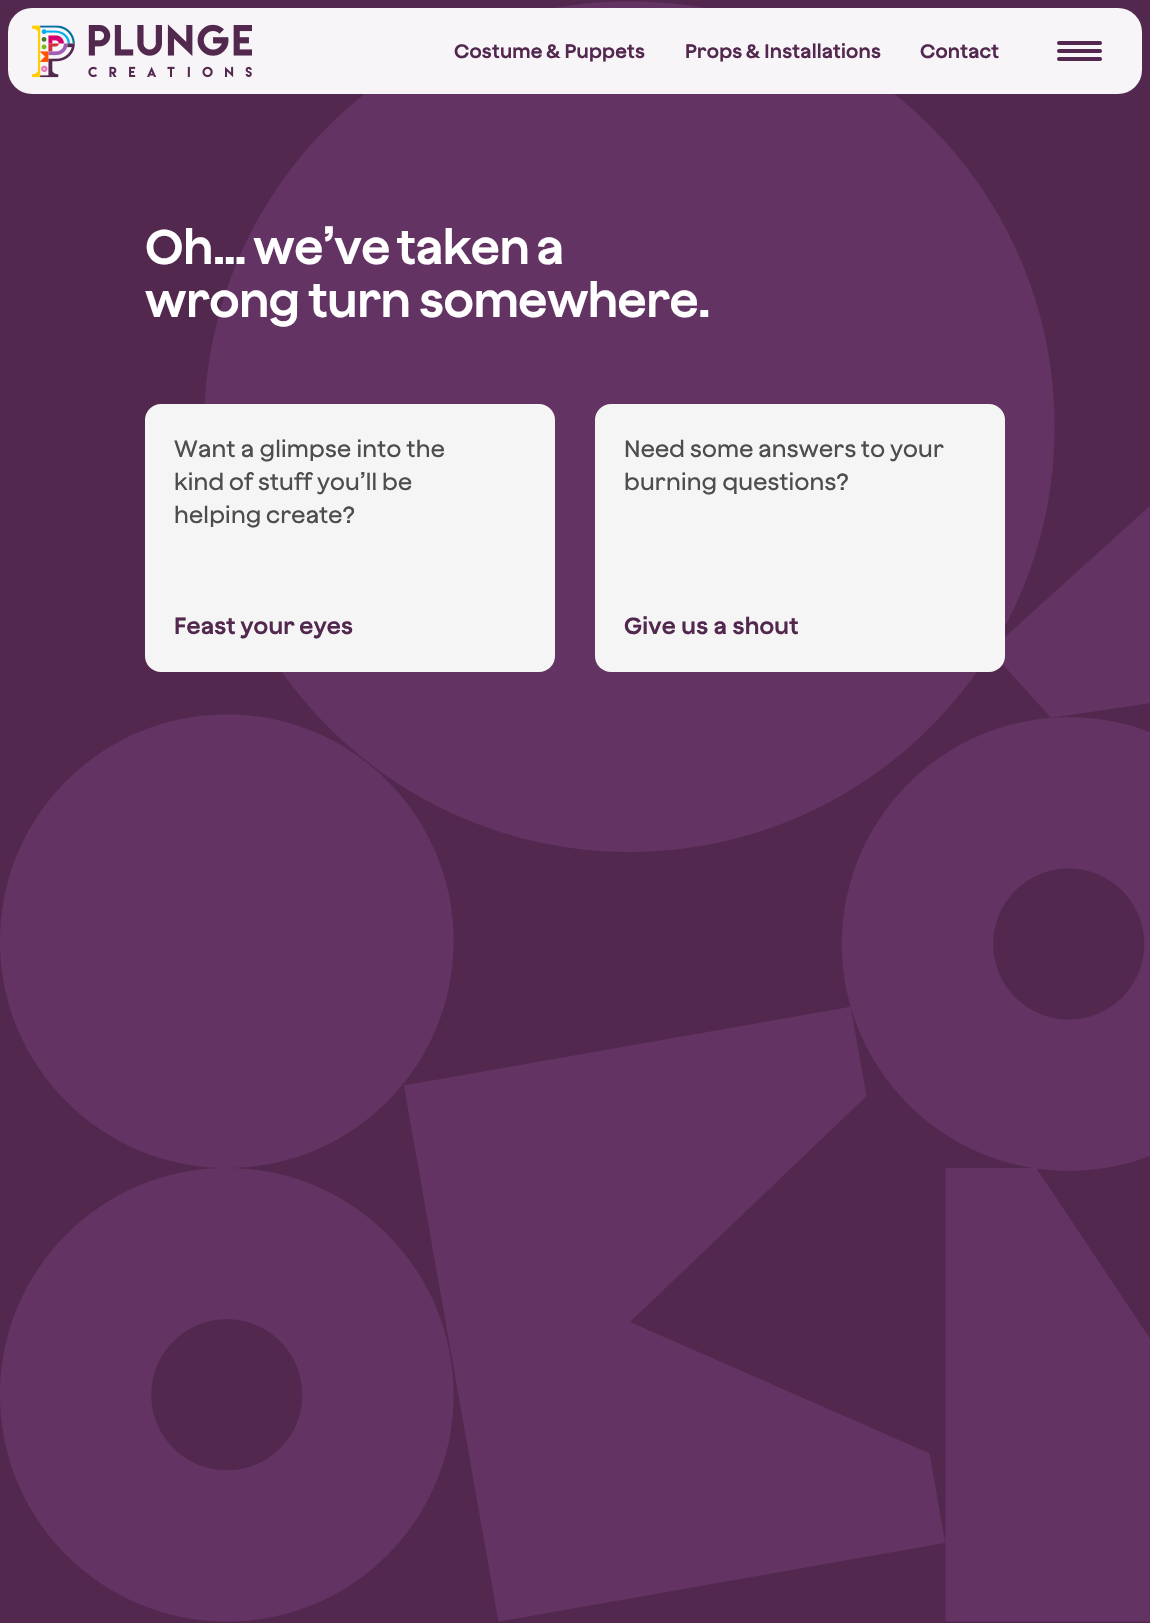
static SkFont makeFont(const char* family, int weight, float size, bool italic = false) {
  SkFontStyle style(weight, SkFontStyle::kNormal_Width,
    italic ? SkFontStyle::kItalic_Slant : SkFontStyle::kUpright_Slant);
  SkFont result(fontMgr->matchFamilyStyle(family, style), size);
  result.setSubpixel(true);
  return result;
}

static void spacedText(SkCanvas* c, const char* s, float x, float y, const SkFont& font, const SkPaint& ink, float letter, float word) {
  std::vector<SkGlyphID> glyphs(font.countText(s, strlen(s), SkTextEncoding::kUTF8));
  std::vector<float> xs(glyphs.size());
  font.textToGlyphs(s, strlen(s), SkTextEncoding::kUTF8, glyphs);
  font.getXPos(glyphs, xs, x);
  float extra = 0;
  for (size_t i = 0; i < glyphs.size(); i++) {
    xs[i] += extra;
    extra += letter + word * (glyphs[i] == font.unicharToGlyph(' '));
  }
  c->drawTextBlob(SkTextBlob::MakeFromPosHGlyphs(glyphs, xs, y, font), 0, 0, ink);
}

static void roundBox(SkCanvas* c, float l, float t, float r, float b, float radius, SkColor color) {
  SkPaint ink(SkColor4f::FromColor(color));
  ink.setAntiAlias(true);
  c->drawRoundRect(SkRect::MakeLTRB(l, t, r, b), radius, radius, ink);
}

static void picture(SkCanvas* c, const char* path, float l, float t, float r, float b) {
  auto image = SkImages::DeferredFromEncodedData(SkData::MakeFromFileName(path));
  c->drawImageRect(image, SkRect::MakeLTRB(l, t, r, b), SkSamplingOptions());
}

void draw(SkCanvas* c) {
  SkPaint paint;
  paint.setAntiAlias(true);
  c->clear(0xff53284f);
  picture(c, "img_01.png", 0, 1, 1150, 1622);
  roundBox(c, 8, 8, 1142, 94, 24, 0xf2ffffff);
  picture(c, "img_02.png", 32, 24, 252, 78);
  SkFont face1 = makeFont("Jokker", 600, 19.5f);
  paint.setColor(0xff53284f);
  spacedText(c, "Costume & Puppets", 454, 58, face1, paint, 0.2f, -1);
  spacedText(c, "Props & Installations", 685, 58, face1, paint, 0.2f, -1);
  spacedText(c, "Contact", 920, 58, face1, paint, 0.2f, 0);
  roundBox(c, 1057, 41, 1102, 45, 2, 0xff53284f);
  roundBox(c, 1057, 49, 1102, 53, 2, 0xff53284f);
  roundBox(c, 1057, 57, 1102, 61, 2, 0xff53284f);
  SkFont face2 = makeFont("Jokker", 600, 48.5f);
  paint.setColor(0xffffffff);
  spacedText(c, "Oh… we’ve taken a", 145, 264, face2, paint, -0.5f, -3);
  spacedText(c, "wrong turn somewhere.", 145, 317, face2, paint, -0.5f, -1);
  roundBox(c, 145, 404, 555, 672, 16, 0xfff6f5f5);
  SkFont face3 = makeFont("Jokker", 500, 23.4f);
  paint.setColor(0xff4d4d4d);
  spacedText(c, "Want a glimpse into the", 174, 457, face3, paint, 0.25f, -0.5f);
  spacedText(c, "kind of stuff you’ll be", 174, 490, face3, paint, 0.25f, -1);
  spacedText(c, "helping create?", 174, 523, face3, paint, 0.25f, -1);
  SkFont face4 = makeFont("Jokker", 600, 23.4f);
  paint.setColor(0xff53284f);
  spacedText(c, "Feast your eyes", 174, 634, face4, paint, 0.2f, -1);
  roundBox(c, 595, 404, 1005, 672, 16, 0xfff6f5f5);
  paint.setColor(0xff4d4d4d);
  spacedText(c, "Need some answers to your", 624, 457, face3, paint, 0.25f, -1);
  spacedText(c, "burning questions?", 624, 490, face3, paint, 0.25f, -0.5f);
  paint.setColor(0xff53284f);
  spacedText(c, "Give us a shout", 624, 634, face4, paint, 0.2f, 0);
}
